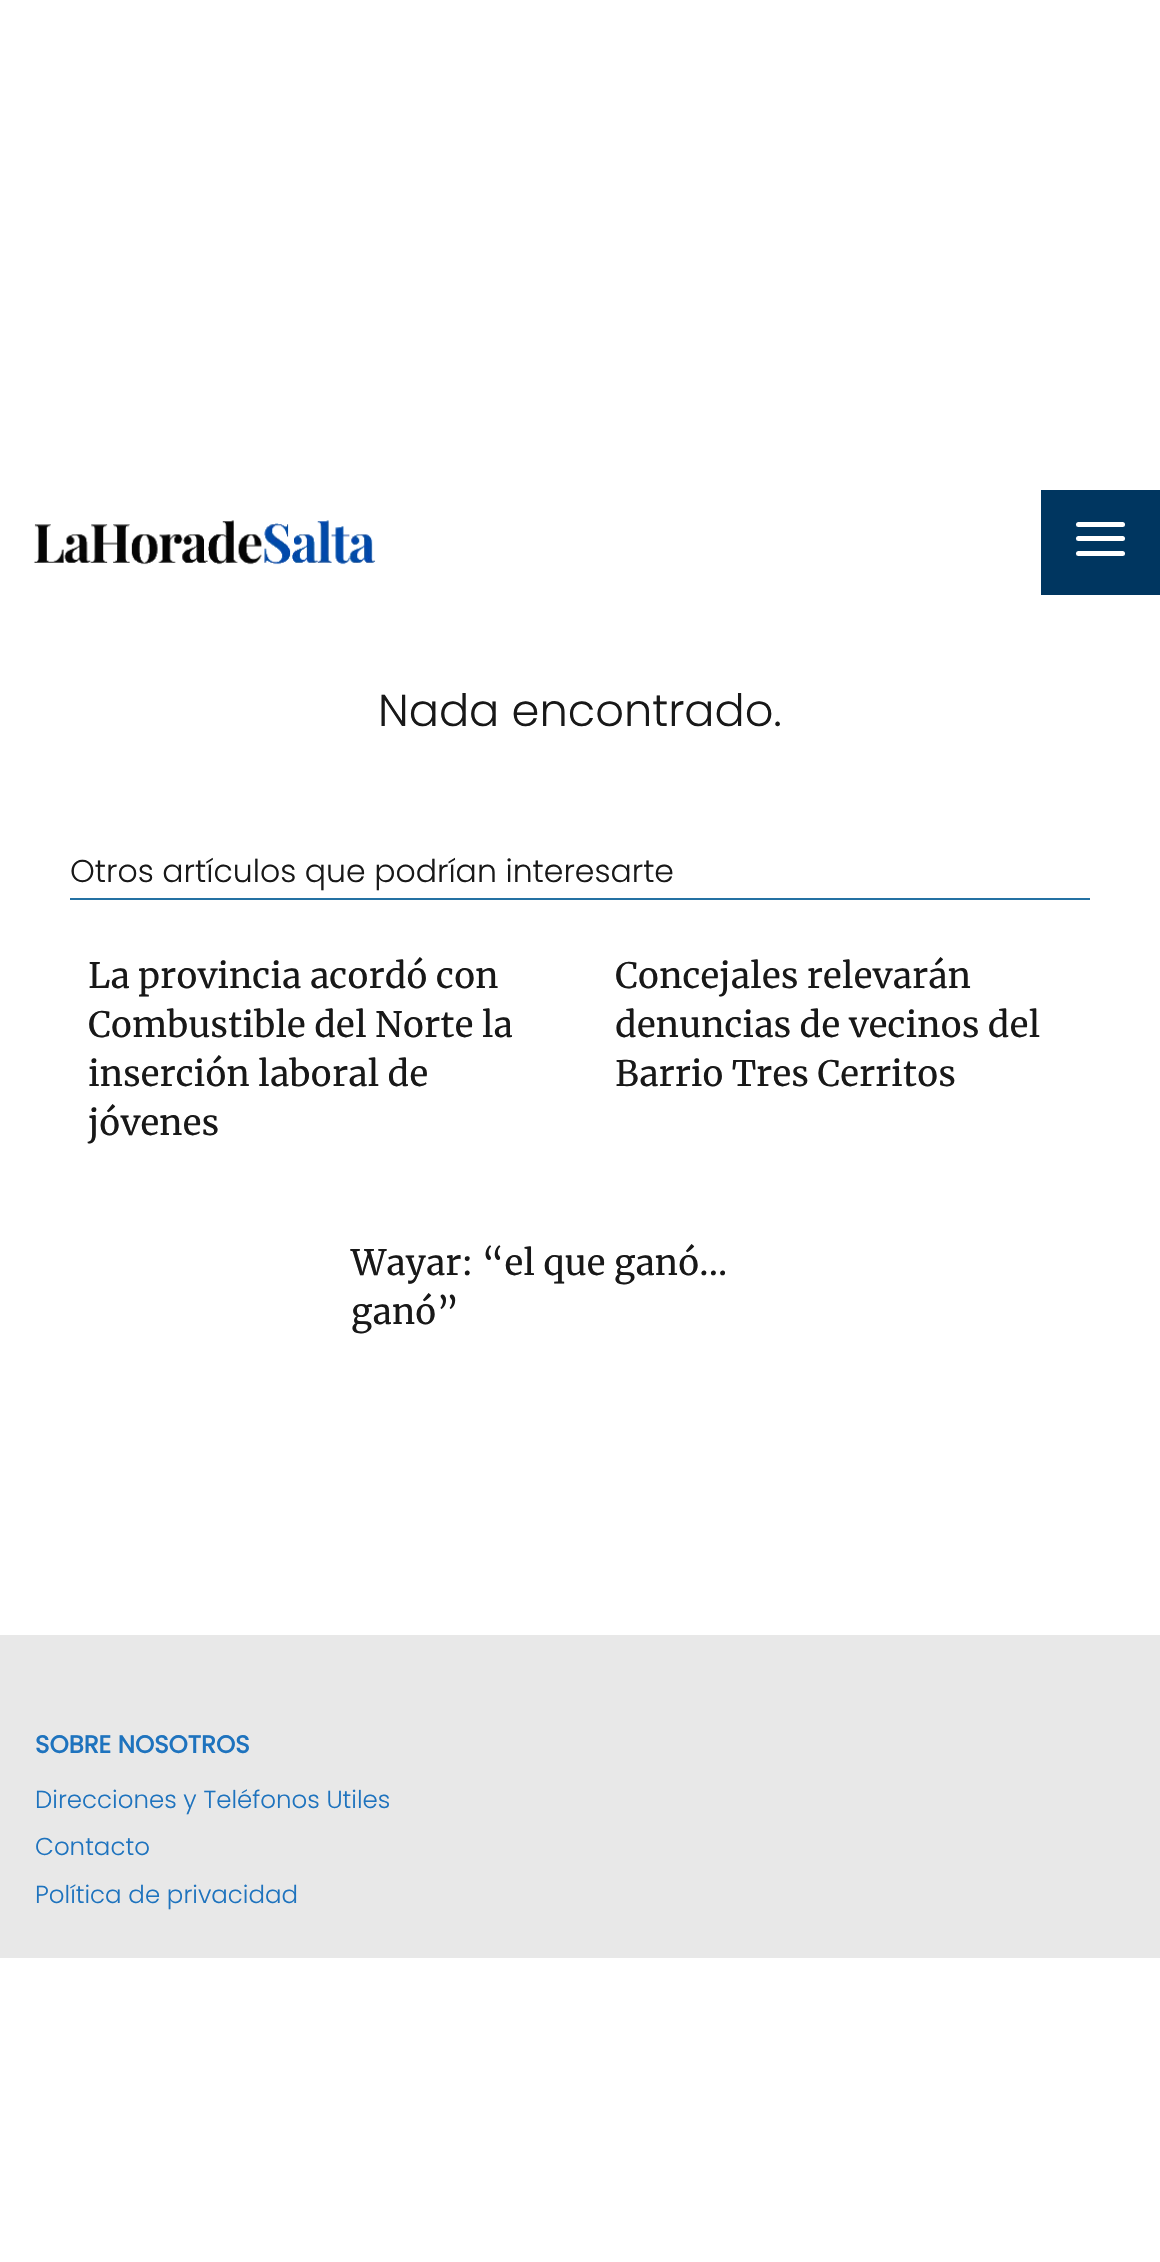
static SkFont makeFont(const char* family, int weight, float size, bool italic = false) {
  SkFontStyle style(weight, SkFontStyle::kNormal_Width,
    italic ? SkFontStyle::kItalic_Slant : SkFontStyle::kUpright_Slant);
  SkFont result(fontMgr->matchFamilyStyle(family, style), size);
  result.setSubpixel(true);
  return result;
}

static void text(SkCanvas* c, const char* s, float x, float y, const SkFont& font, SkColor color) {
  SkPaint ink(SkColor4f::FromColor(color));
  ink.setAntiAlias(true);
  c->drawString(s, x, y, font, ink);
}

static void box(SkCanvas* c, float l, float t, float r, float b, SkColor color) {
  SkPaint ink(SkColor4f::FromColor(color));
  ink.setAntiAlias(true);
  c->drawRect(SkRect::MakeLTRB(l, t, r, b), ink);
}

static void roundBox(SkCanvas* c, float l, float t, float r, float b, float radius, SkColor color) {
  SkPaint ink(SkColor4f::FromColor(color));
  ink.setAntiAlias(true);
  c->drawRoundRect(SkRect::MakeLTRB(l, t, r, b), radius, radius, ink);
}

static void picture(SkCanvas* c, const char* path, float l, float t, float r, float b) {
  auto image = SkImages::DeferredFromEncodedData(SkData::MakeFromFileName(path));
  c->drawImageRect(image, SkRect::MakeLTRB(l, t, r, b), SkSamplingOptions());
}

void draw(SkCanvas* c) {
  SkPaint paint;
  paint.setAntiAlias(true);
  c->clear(0xffffffff);
  picture(c, "img_01.png", 33, 520, 376, 565);
  box(c, 1041, 490, 1160, 595, 0xff003660);
  roundBox(c, 1076, 522, 1125, 527, 2.5f, 0xffffffff);
  roundBox(c, 1076, 536, 1125, 541, 2.5f, 0xffffffff);
  roundBox(c, 1076, 551, 1125, 556, 2.5f, 0xffffffff);
  SkFont face1 = makeFont("Poppins", 300, 44.75f);
  text(c, "Nada encontrado.", 378, 726, face1, 0xff181818);
  box(c, 70, 898, 1090, 900, 0xff2471a3);
  SkFont face2 = makeFont("Poppins", 300, 31.5f);
  text(c, "Otros artículos que podrían interesarte", 70, 882, face2, 0xff181818);
  SkFont face3 = makeFont("Merriweather", 400, 35);
  text(c, "La provincia acordó con", 88, 988, face3, 0xff181818);
  text(c, "Combustible del Norte la", 88, 1037, face3, 0xff181818);
  text(c, "inserción laboral de", 88, 1086, face3, 0xff181818);
  text(c, "jóvenes", 88, 1135, face3, 0xff181818);
  text(c, "Concejales relevarán", 615, 988, face3, 0xff181818);
  text(c, "denuncias de vecinos del", 615, 1037, face3, 0xff181818);
  text(c, "Barrio Tres Cerritos", 615, 1086, face3, 0xff181818);
  text(c, "Wayar: “el que ganó...", 351, 1275, face3, 0xff181818);
  text(c, "ganó”", 351, 1324, face3, 0xff181818);
  box(c, 0, 1635, 1160, 1958, 0xffe8e8e8);
  SkFont face4 = makeFont("Poppins", 700, 24.5f);
  text(c, "SOBRE NOSOTROS", 35, 1753, face4, 0xff1e73be);
  SkFont face5 = makeFont("Poppins", 300, 24.5f);
  text(c, "Direcciones y Teléfonos Utiles", 35, 1808, face5, 0xff1e73be);
  text(c, "Contacto", 35, 1855, face5, 0xff1e73be);
  text(c, "Política de privacidad", 35, 1903, face5, 0xff1e73be);
}
